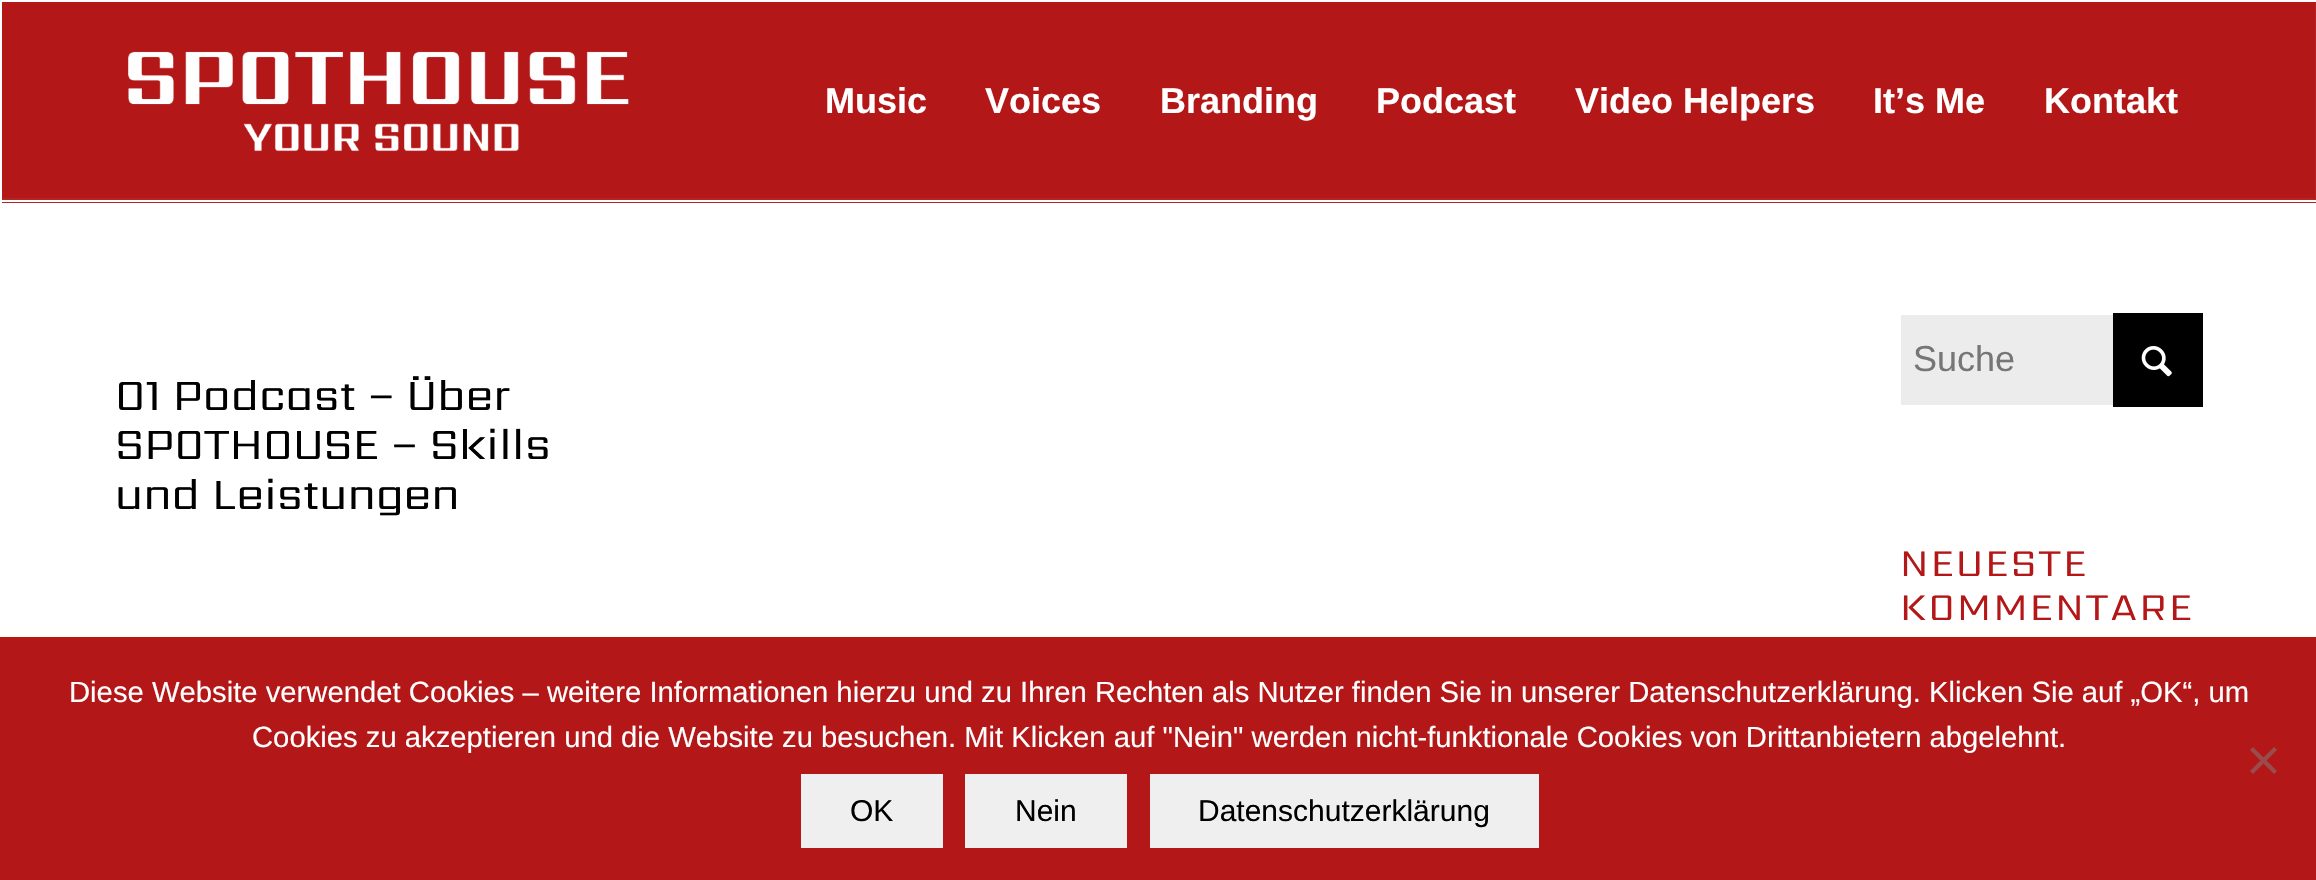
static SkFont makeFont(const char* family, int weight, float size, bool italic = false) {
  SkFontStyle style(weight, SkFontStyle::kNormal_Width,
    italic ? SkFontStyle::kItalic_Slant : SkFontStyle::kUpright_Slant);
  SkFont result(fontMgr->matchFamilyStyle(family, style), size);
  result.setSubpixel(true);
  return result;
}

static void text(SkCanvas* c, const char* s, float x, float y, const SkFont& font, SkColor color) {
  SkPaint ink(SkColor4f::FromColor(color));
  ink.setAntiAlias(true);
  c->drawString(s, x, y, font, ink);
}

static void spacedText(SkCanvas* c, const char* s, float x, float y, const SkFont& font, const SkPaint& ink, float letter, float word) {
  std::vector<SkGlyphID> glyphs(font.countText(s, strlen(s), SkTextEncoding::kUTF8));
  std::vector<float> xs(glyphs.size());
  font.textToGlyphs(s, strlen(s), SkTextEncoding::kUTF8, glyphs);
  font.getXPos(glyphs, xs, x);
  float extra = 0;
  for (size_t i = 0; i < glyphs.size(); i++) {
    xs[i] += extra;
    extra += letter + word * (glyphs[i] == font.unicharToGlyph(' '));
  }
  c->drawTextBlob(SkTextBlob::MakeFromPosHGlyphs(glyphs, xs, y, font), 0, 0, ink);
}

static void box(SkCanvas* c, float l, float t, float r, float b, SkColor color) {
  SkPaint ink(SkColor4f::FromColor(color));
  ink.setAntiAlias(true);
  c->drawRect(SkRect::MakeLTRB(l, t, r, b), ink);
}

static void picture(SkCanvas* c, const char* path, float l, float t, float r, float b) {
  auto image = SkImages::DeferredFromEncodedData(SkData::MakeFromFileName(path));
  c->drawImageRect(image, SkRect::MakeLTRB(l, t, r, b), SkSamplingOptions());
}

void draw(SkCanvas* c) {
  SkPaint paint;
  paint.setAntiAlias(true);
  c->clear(0xffffffff);
  box(c, 2315, 2, 2316, 203, 0xffb72323);
  box(c, 2, 198, 2315, 203, 0xffb72323);
  box(c, 2, 200, 2316, 202, 0xffffffff);
  box(c, 2, 2, 2315, 198, 0xffb31717);
  picture(c, "img_01.png", 128, 51, 629, 152);
  SkFont face1 = makeFont("Liberation Sans", 700, 36);
  text(c, "Music", 825, 113, face1, 0xffffffff);
  text(c, "Voices", 985, 113, face1, 0xffffffff);
  text(c, "Branding", 1160, 113, face1, 0xffffffff);
  text(c, "Podcast", 1376, 113, face1, 0xffffffff);
  text(c, "Video Helpers", 1575, 113, face1, 0xffffffff);
  text(c, "It’s Me", 1873, 113, face1, 0xffffffff);
  text(c, "Kontakt", 2044, 113, face1, 0xffffffff);
  SkFont face2 = makeFont("Sarpanch", 400, 45);
  text(c, "01 Podcast – Über", 115, 410, face2, 0xff000000);
  text(c, "SPOTHOUSE – Skills", 115, 459, face2, 0xff000000);
  text(c, "und Leistungen", 115, 509, face2, 0xff000000);
  box(c, 1901, 315, 2113, 405, 0xffececec);
  SkFont face3 = makeFont("Liberation Sans", 400, 36);
  text(c, "Suche", 1913, 371, face3, 0xff767676);
  box(c, 2113, 313, 2203, 407, 0xff000000);
  picture(c, "img_02.png", 2141, 346, 2172, 377);
  SkFont face4 = makeFont("Sarpanch", 400, 39.5f);
  paint.setColor(0xffb31717);
  spacedText(c, "NEUESTE", 1900, 576, face4, paint, 2.25f, 0);
  spacedText(c, "KOMMENTARE", 1900, 620, face4, paint, 2.25f, 0);
  box(c, 0, 637, 2316, 880, 0xffb31717);
  SkFont face5 = makeFont("Liberation Sans", 400, 29.25f);
  text(c, "Diese Website verwendet Cookies – weitere Informationen hierzu und zu Ihren Rechten als Nutzer finden Sie in unserer Datenschutzerklärung. Klicken Sie auf „OK“, um", 69, 702, face5, 0xffffffff);
  text(c, "Cookies zu akzeptieren und die Website zu besuchen. Mit Klicken auf \"Nein\" werden nicht-funktionale Cookies von Drittanbietern abgelehnt.", 252, 747, face5, 0xffffffff);
  paint.setColor(0xff9a4c4c);
  c->drawPath(SkPathBuilder().moveTo(2274, 747).lineTo(2277, 750).lineTo(2253, 774).lineTo(2250, 771).close().detach(), paint);
  c->drawPath(SkPathBuilder().moveTo(2250, 750).lineTo(2253, 747).lineTo(2277, 771).lineTo(2274, 774).close().detach(), paint);
  box(c, 801, 774, 943, 848, 0xffefefef);
  SkFont face6 = makeFont("Liberation Sans", 400, 30);
  text(c, "OK", 850, 821, face6, 0xff000000);
  box(c, 965, 774, 1127, 848, 0xffefefef);
  text(c, "Nein", 1015, 821, face6, 0xff000000);
  box(c, 1150, 774, 1539, 848, 0xffefefef);
  text(c, "Datenschutzerklärung", 1198, 821, face6, 0xff000000);
}
